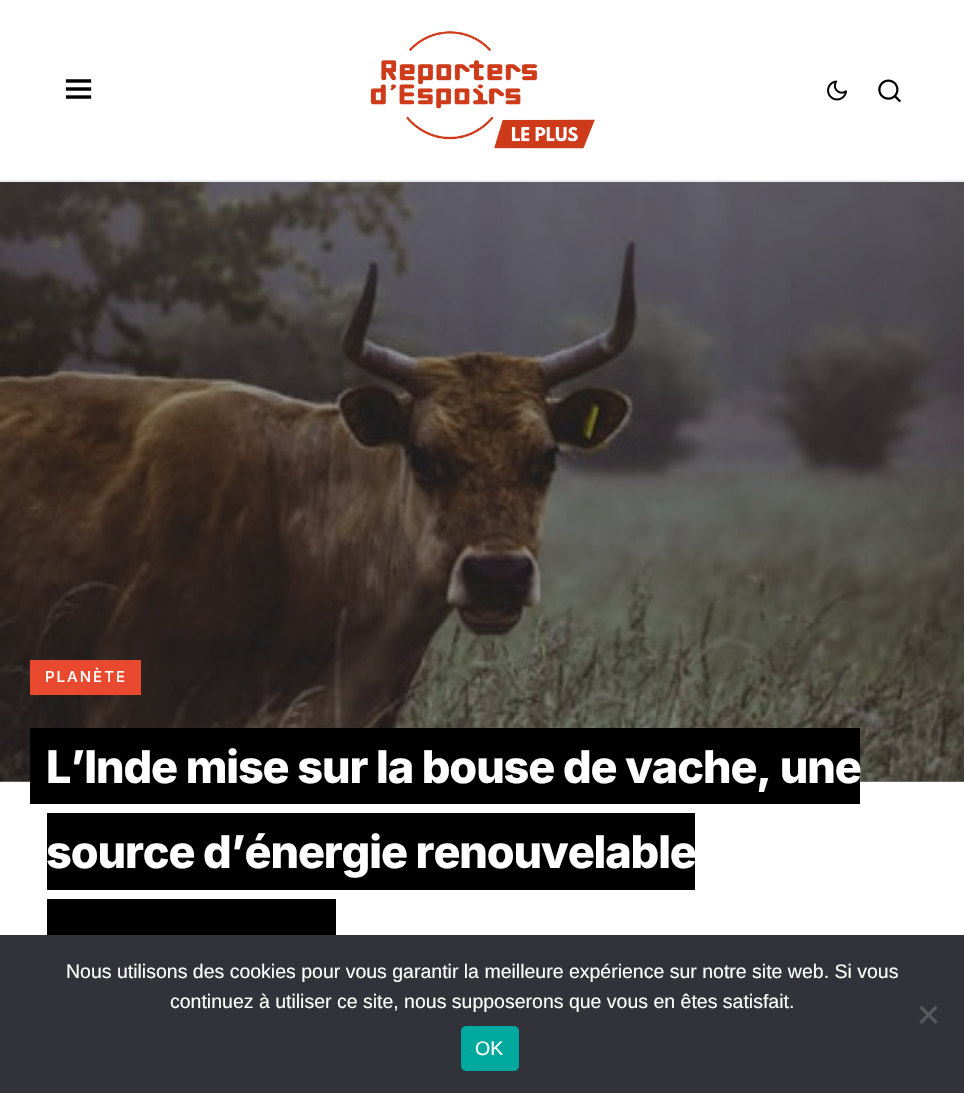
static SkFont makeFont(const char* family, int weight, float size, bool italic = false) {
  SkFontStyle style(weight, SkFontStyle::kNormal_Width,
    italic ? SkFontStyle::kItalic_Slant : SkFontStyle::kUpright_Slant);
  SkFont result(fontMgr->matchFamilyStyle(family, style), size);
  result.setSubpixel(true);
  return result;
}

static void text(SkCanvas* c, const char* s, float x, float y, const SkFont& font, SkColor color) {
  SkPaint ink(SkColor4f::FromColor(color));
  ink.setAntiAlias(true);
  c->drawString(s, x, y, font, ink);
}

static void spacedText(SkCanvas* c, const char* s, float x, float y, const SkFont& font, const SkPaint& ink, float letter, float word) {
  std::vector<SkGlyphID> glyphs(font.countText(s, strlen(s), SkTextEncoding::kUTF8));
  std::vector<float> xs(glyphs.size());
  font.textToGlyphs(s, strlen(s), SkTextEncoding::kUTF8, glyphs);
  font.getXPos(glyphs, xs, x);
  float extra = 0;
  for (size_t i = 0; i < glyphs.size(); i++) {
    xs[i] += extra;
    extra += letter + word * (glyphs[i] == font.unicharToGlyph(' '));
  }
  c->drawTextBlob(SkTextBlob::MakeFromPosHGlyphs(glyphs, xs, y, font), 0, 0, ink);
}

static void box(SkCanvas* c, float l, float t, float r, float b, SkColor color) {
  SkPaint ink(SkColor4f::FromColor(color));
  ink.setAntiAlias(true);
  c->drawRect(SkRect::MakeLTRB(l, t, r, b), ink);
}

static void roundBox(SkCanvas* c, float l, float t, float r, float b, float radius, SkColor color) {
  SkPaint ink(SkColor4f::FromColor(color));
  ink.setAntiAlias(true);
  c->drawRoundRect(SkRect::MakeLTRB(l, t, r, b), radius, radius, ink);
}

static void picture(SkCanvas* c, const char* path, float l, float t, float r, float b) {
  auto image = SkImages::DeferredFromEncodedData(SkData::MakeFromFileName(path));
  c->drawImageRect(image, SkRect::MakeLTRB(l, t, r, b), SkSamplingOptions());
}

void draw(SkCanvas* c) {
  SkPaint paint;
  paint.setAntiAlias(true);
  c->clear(0xffffffff);
  box(c, 0, 180, 964, 182, 0xffe9ecef);
  picture(c, "img_01.png", 65, 79, 92, 99);
  picture(c, "img_02.png", 370, 31, 595, 149);
  picture(c, "img_03.png", 827, 80, 847, 101);
  picture(c, "img_04.png", 878, 79, 901, 102);
  box(c, 0, 781, 964, 782, 0xff909090);
  picture(c, "img_05.png", 0, 182, 964, 782);
  box(c, 30, 660, 141, 695, 0xffe9492e);
  SkFont face1 = makeFont("Inter", 500, 15);
  paint.setColor(0xffffffff);
  spacedText(c, "PLANÈTE", 45, 682, face1, paint, 2, 0);
  box(c, 30, 728, 860, 804, 0xff000000);
  SkFont face2 = makeFont("Inter", 800, 45);
  spacedText(c, "L’Inde mise sur la bouse de vache, une", 46, 783, face2, paint, -1.1f, 0);
  box(c, 47, 813, 695, 890, 0xff000000);
  spacedText(c, "source d’énergie renouvelable", 46, 868, face2, paint, -1.1f, 0);
  box(c, 47, 899, 336, 935, 0xff000000);
  box(c, 0, 935, 964, 1093, 0xff32323a);
  SkFont face3 = makeFont("Liberation Sans", 400, 19.5f);
  text(c, "Nous utilisons des cookies pour vous garantir la meilleure expérience sur notre site web. Si vous", 66, 978, face3, 0xffffffff);
  text(c, "continuez à utiliser ce site, nous supposerons que vous en êtes satisfait.", 170, 1008, face3, 0xffffffff);
  paint.setColor(0xff59595d);
  c->drawPath(SkPathBuilder().moveTo(935.5f, 1005.5f).lineTo(937.5f, 1008).lineTo(921.5f, 1024).lineTo(919.5f, 1021.5f).close().detach(), paint);
  c->drawPath(SkPathBuilder().moveTo(919.5f, 1008).lineTo(921.5f, 1005.5f).lineTo(937.5f, 1021.5f).lineTo(935.5f, 1024).close().detach(), paint);
  roundBox(c, 461, 1026, 519, 1071, 5, 0xff00a99d);
  text(c, "OK", 475, 1055, face3, 0xffffffff);
}
